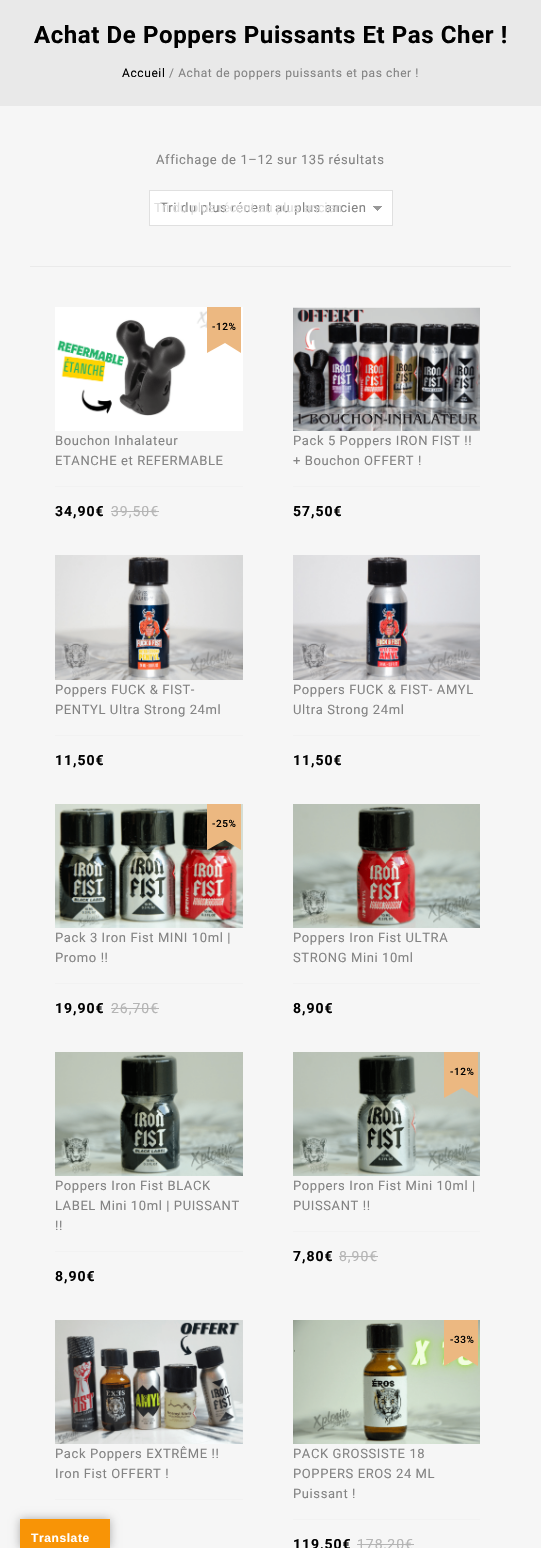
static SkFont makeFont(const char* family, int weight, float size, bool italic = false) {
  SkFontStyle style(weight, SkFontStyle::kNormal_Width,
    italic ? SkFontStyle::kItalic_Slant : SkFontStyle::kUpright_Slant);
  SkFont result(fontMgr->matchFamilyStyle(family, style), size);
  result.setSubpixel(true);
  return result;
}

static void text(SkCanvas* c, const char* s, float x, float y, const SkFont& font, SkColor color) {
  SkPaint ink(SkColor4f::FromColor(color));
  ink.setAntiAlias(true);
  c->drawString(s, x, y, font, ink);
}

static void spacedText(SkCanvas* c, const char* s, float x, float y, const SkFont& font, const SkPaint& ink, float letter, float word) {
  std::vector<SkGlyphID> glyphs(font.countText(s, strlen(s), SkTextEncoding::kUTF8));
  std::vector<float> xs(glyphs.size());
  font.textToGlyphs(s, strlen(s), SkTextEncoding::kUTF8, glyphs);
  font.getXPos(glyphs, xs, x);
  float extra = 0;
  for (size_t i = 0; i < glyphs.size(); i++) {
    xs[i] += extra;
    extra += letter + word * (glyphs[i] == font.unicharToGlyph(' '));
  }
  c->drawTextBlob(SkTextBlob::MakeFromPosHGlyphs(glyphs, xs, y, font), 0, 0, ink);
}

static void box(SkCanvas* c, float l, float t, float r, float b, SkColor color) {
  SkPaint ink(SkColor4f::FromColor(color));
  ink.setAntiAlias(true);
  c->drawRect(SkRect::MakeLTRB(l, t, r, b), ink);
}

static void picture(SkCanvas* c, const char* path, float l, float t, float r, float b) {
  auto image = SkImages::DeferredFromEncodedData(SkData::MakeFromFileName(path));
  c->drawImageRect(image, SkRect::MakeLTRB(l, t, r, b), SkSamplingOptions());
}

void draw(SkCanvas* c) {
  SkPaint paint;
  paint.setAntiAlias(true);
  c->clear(0xfff6f6f6);
  box(c, 0, 0, 541, 106, 0xffe9e9e9);
  SkFont face1 = makeFont("Roboto", 700, 24);
  paint.setColor(0xff000000);
  spacedText(c, "Achat De Poppers Puissants Et Pas Cher !", 34, 43, face1, paint, 0.6f, 0);
  SkFont face2 = makeFont("Roboto", 400, 12);
  spacedText(c, "Accueil", 122, 77, face2, paint, 0.6f, 0);
  paint.setColor(0xff838383);
  spacedText(c, "/ Achat de poppers puissants et pas cher !", 169, 77, face2, paint, 0.6f, 0);
  box(c, 30, 266, 511, 267, 0xffeaeaea);
  SkFont face3 = makeFont("Roboto", 400, 13);
  spacedText(c, "Affichage de 1–12 sur 135 résultats", 156, 164, face3, paint, 0.6f, 0);
  paint.setColor(0xffffffff);
  c->drawRect(SkRect::MakeLTRB(149.5f, 190.5f, 392.5f, 225.5f), paint);
  paint.setStyle(SkPaint::kStroke_Style);
  paint.setStrokeWidth(1);
  paint.setColor(0xffe0e0e0);
  c->drawRect(SkRect::MakeLTRB(149.5f, 190.5f, 392.5f, 225.5f), paint);
  paint.setStyle(SkPaint::kFill_Style);
  paint.setColor(0xff838383);
  spacedText(c, "Tri du plus récent au plus ancien", 160, 212, face3, paint, 0.6f, 0);
  SkFont face4 = makeFont("Liberation Sans", 400, 13);
  text(c, "Tri du plus récent au plus ancien", 154, 212, face4, 0xffdddddd);
  picture(c, "img_01.png", 373, 206, 382, 211);
  picture(c, "img_02.png", 55, 307, 243, 431);
  picture(c, "img_03.png", 207, 307, 241, 353);
  SkFont face5 = makeFont("Roboto", 500, 10);
  paint.setColor(0xff000000);
  spacedText(c, "-12%", 212, 330, face5, paint, 0.6f, 0);
  paint.setColor(0xff838383);
  spacedText(c, "Bouchon Inhalateur", 55, 445, face3, paint, 0.6f, 0);
  spacedText(c, "ETANCHE et REFERMABLE", 55, 465, face3, paint, 0.6f, 0);
  box(c, 55, 486, 243, 487, 0xfff2f2f2);
  SkFont face6 = makeFont("Roboto", 700, 14);
  paint.setColor(0xff000000);
  spacedText(c, "34,90€", 55, 516, face6, paint, 1, 0);
  SkFont face7 = makeFont("Roboto", 400, 14);
  paint.setColor(0xffb5b5b5);
  spacedText(c, "39,50€", 111, 516, face7, paint, 1, 0);
  box(c, 111, 511, 159, 512, 0xffb5b5b5);
  picture(c, "img_04.png", 293, 307, 480, 431);
  paint.setColor(0xff838383);
  spacedText(c, "Pack 5 Poppers IRON FIST !!", 293, 445, face3, paint, 0.6f, 0);
  spacedText(c, "+ Bouchon OFFERT !", 293, 465, face3, paint, 0.6f, 0);
  box(c, 293, 486, 480, 487, 0xfff2f2f2);
  paint.setColor(0xff000000);
  spacedText(c, "57,50€", 293, 516, face6, paint, 1, 0);
  picture(c, "img_05.png", 55, 555, 243, 680);
  paint.setColor(0xff838383);
  spacedText(c, "Poppers FUCK & FIST-", 55, 694, face3, paint, 0.6f, 0);
  spacedText(c, "PENTYL Ultra Strong 24ml", 55, 714, face3, paint, 0.6f, 0);
  box(c, 55, 735, 243, 736, 0xfff2f2f2);
  paint.setColor(0xff000000);
  spacedText(c, "11,50€", 55, 765, face6, paint, 1, 0);
  picture(c, "img_06.png", 293, 555, 480, 680);
  paint.setColor(0xff838383);
  spacedText(c, "Poppers FUCK & FIST- AMYL", 293, 694, face3, paint, 0.6f, 0);
  spacedText(c, "Ultra Strong 24ml", 293, 714, face3, paint, 0.6f, 0);
  box(c, 293, 735, 480, 736, 0xfff2f2f2);
  paint.setColor(0xff000000);
  spacedText(c, "11,50€", 293, 765, face6, paint, 1, 0);
  picture(c, "img_07.png", 55, 804, 243, 928);
  picture(c, "img_08.png", 207, 804, 241, 850);
  spacedText(c, "-25%", 212, 827, face5, paint, 0.6f, 0);
  paint.setColor(0xff838383);
  spacedText(c, "Pack 3 Iron Fist MINI 10ml |", 55, 942, face3, paint, 0.6f, 0);
  spacedText(c, "Promo !!", 55, 962, face3, paint, 0.6f, 0);
  box(c, 55, 983, 243, 984, 0xfff2f2f2);
  paint.setColor(0xff000000);
  spacedText(c, "19,90€", 55, 1013, face6, paint, 1, 0);
  paint.setColor(0xffb5b5b5);
  spacedText(c, "26,70€", 111, 1013, face7, paint, 1, 0);
  box(c, 111, 1008, 159, 1009, 0xffb5b5b5);
  picture(c, "img_09.png", 293, 804, 480, 928);
  paint.setColor(0xff838383);
  spacedText(c, "Poppers Iron Fist ULTRA", 293, 942, face3, paint, 0.6f, 0);
  spacedText(c, "STRONG Mini 10ml", 293, 962, face3, paint, 0.6f, 0);
  box(c, 293, 983, 480, 984, 0xfff2f2f2);
  paint.setColor(0xff000000);
  spacedText(c, "8,90€", 293, 1013, face6, paint, 1, 0);
  picture(c, "img_10.png", 55, 1052, 243, 1176);
  paint.setColor(0xff838383);
  spacedText(c, "Poppers Iron Fist BLACK", 55, 1190, face3, paint, 0.6f, 0);
  spacedText(c, "LABEL Mini 10ml | PUISSANT", 55, 1210, face3, paint, 0.6f, 0);
  spacedText(c, "!!", 55, 1230, face3, paint, 0.6f, 0);
  box(c, 55, 1251, 243, 1252, 0xfff2f2f2);
  paint.setColor(0xff000000);
  spacedText(c, "8,90€", 55, 1281, face6, paint, 1, 0);
  picture(c, "img_11.png", 293, 1052, 480, 1176);
  picture(c, "img_12.png", 444, 1052, 478, 1098);
  spacedText(c, "-12%", 450, 1075, face5, paint, 0.6f, 0);
  paint.setColor(0xff838383);
  spacedText(c, "Poppers Iron Fist Mini 10ml |", 293, 1190, face3, paint, 0.6f, 0);
  spacedText(c, "PUISSANT !!", 293, 1210, face3, paint, 0.6f, 0);
  box(c, 293, 1231, 480, 1232, 0xfff2f2f2);
  paint.setColor(0xff000000);
  spacedText(c, "7,80€", 293, 1261, face6, paint, 1, 0);
  paint.setColor(0xffb5b5b5);
  spacedText(c, "8,90€", 339, 1261, face7, paint, 1, 0);
  box(c, 339, 1256, 378, 1257, 0xffb5b5b5);
  picture(c, "img_13.png", 55, 1320, 243, 1444);
  paint.setColor(0xff838383);
  spacedText(c, "Pack Poppers EXTRÊME !!", 55, 1458, face3, paint, 0.6f, 0);
  spacedText(c, "Iron Fist OFFERT !", 55, 1478, face3, paint, 0.6f, 0);
  box(c, 55, 1499, 243, 1500, 0xfff2f2f2);
  picture(c, "img_14.png", 293, 1320, 480, 1444);
  picture(c, "img_15.png", 444, 1320, 478, 1366);
  paint.setColor(0xff000000);
  spacedText(c, "-33%", 450, 1343, face5, paint, 0.6f, 0);
  paint.setColor(0xff838383);
  spacedText(c, "PACK GROSSISTE 18", 293, 1458, face3, paint, 0.6f, 0);
  spacedText(c, "POPPERS EROS 24 ML", 293, 1478, face3, paint, 0.6f, 0);
  spacedText(c, "Puissant !", 293, 1498, face3, paint, 0.6f, 0);
  box(c, 293, 1519, 480, 1520, 0xfff2f2f2);
  paint.setColor(0xff000000);
  spacedText(c, "119,50€", 293, 1549, face6, paint, 1, 0);
  paint.setColor(0xffb5b5b5);
  spacedText(c, "178,20€", 357, 1549, face7, paint, 1, 0);
  box(c, 357, 1544, 414, 1545, 0xffb5b5b5);
  paint.setColor(0x4d000000);
  paint.setMaskFilter(SkMaskFilter::MakeBlur(kNormal_SkBlurStyle, 4.5f));
  c->drawRect(SkRect::MakeLTRB(20, 1519, 110, 1548), paint);
  paint.setMaskFilter(nullptr);
  box(c, 20, 1519, 110, 1548, 0xfff89406);
  SkFont face8 = makeFont("Liberation Sans", 700, 12);
  paint.setColor(0xffffffff);
  spacedText(c, "Translate", 31, 1542, face8, paint, 0.6f, 0);
}
